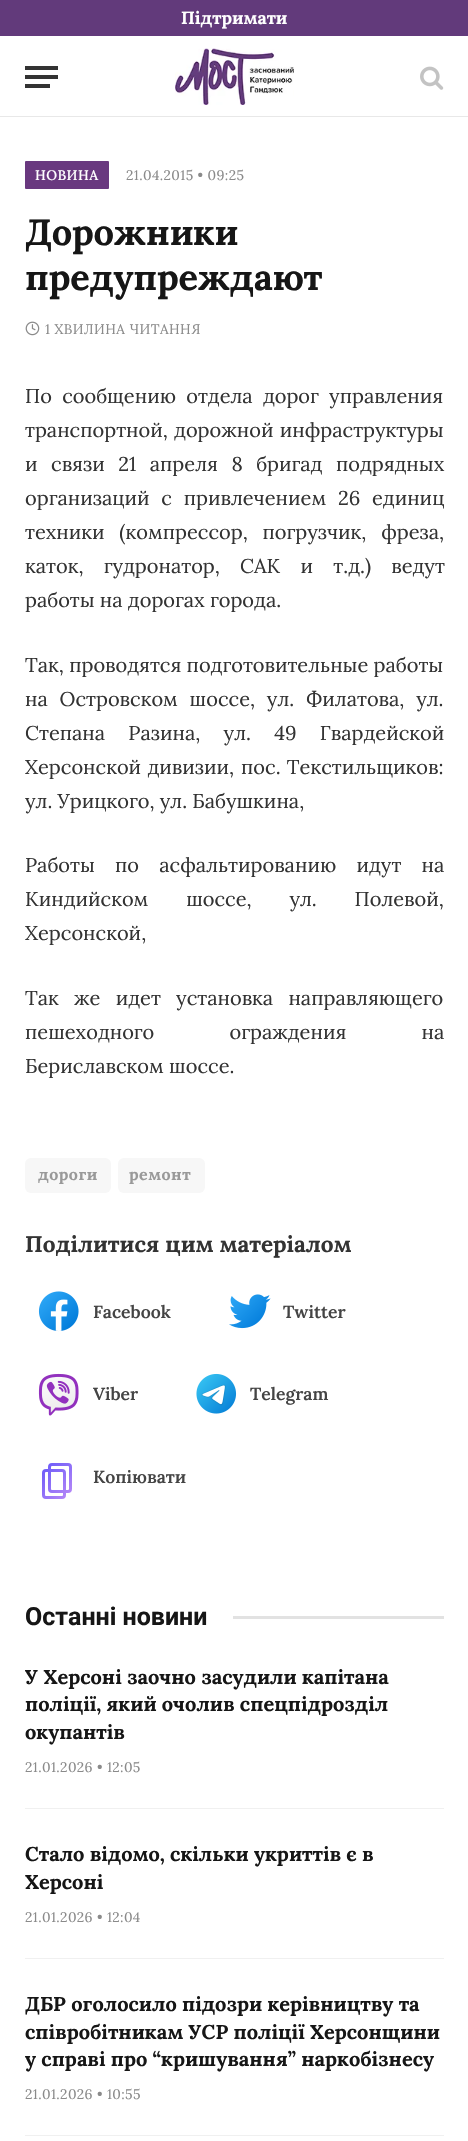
static SkFont makeFont(const char* family, int weight, float size, bool italic = false) {
  SkFontStyle style(weight, SkFontStyle::kNormal_Width,
    italic ? SkFontStyle::kItalic_Slant : SkFontStyle::kUpright_Slant);
  SkFont result(fontMgr->matchFamilyStyle(family, style), size);
  result.setSubpixel(true);
  return result;
}

static void text(SkCanvas* c, const char* s, float x, float y, const SkFont& font, SkColor color) {
  SkPaint ink(SkColor4f::FromColor(color));
  ink.setAntiAlias(true);
  c->drawString(s, x, y, font, ink);
}

static void spacedText(SkCanvas* c, const char* s, float x, float y, const SkFont& font, const SkPaint& ink, float letter, float word) {
  std::vector<SkGlyphID> glyphs(font.countText(s, strlen(s), SkTextEncoding::kUTF8));
  std::vector<float> xs(glyphs.size());
  font.textToGlyphs(s, strlen(s), SkTextEncoding::kUTF8, glyphs);
  font.getXPos(glyphs, xs, x);
  float extra = 0;
  for (size_t i = 0; i < glyphs.size(); i++) {
    xs[i] += extra;
    extra += letter + word * (glyphs[i] == font.unicharToGlyph(' '));
  }
  c->drawTextBlob(SkTextBlob::MakeFromPosHGlyphs(glyphs, xs, y, font), 0, 0, ink);
}

static void box(SkCanvas* c, float l, float t, float r, float b, SkColor color) {
  SkPaint ink(SkColor4f::FromColor(color));
  ink.setAntiAlias(true);
  c->drawRect(SkRect::MakeLTRB(l, t, r, b), ink);
}

static void roundBox(SkCanvas* c, float l, float t, float r, float b, float radius, SkColor color) {
  SkPaint ink(SkColor4f::FromColor(color));
  ink.setAntiAlias(true);
  c->drawRoundRect(SkRect::MakeLTRB(l, t, r, b), radius, radius, ink);
}

static void picture(SkCanvas* c, const char* path, float l, float t, float r, float b) {
  auto image = SkImages::DeferredFromEncodedData(SkData::MakeFromFileName(path));
  c->drawImageRect(image, SkRect::MakeLTRB(l, t, r, b), SkSamplingOptions());
}

void draw(SkCanvas* c) {
  SkPaint paint;
  paint.setAntiAlias(true);
  c->clear(0xffffffff);
  box(c, 0, 0, 468, 36, 0xff623a7b);
  SkFont face1 = makeFont("Lora", 700, 17.5f);
  text(c, "Підтримати", 181, 24, face1, 0xffffffff);
  box(c, 0, 116, 468, 117, 0xffe8e8e8);
  box(c, 25, 84, 50, 88, 0xff333333);
  box(c, 25, 66, 58, 70, 0xff333333);
  box(c, 25, 75, 58, 79, 0xff333333);
  picture(c, "img_01.png", 175, 48, 294, 105);
  picture(c, "img_02.png", 420, 66, 444, 90);
  roundBox(c, 25, 161, 109, 189, 1, 0xff69387f);
  SkFont face2 = makeFont("Lora", 500, 13.75f);
  paint.setColor(0xffffffff);
  spacedText(c, "НОВИНА", 35, 180, face2, paint, 0.4f, 0);
  SkFont face3 = makeFont("Lora", 400, 13.75f);
  paint.setColor(0xff8a8a8a);
  spacedText(c, "21.04.2015 • 09:25", 126, 180, face3, paint, 0.4f, 0);
  SkFont face4 = makeFont("Lora", 700, 36.25f);
  paint.setColor(0xff161616);
  spacedText(c, "Дорожники", 25, 245, face4, paint, -0.25f, 0);
  spacedText(c, "предупреждают", 25, 290, face4, paint, -0.25f, 0);
  picture(c, "img_03.png", 25, 321, 40, 336);
  paint.setColor(0xff8a8a8a);
  spacedText(c, "1 ХВИЛИНА ЧИТАННЯ", 45, 334, face3, paint, 0.4f, 0);
  SkFont face5 = makeFont("Lora", 400, 20);
  paint.setColor(0xff333333);
  spacedText(c, "По сообщению отдела дорог управления", 25, 403, face5, paint, 0, 5);
  spacedText(c, "транспортной, дорожной инфраструктуры", 25, 437, face5, paint, 0, 1);
  spacedText(c, "и связи 21 апреля 8 бригад подрядных", 25, 471, face5, paint, 0, 8.25f);
  spacedText(c, "организаций с привлечением 26 единиц", 25, 505, face5, paint, 0, 6.5f);
  spacedText(c, "техники (компрессор, погрузчик, фреза,", 25, 539, face5, paint, 0, 9.5f);
  spacedText(c, "каток, гудронатор, САК и т.д.) ведут", 25, 573, face5, paint, 0, 15);
  text(c, "работы на дорогах города.", 25, 607, face5, 0xff333333);
  text(c, "Так, проводятся подготовительные работы", 25, 672, face5, 0xff333333);
  spacedText(c, "на Островском шоссе, ул. Филатова, ул.", 25, 706, face5, paint, 0, 6.5f);
  spacedText(c, "Степана Разина, ул. 49 Гвардейской", 25, 740, face5, paint, 0, 18);
  spacedText(c, "Херсонской дивизии,", 25, 774, face5, paint, 0, 1);
  spacedText(c, "пос. Текстильщиков:", 241, 774, face5, paint, 0, 1);
  text(c, "ул. Урицкого, ул. Бабушкина,", 25, 808, face5, 0xff333333);
  spacedText(c, "Работы по асфальтированию идут на", 25, 872, face5, paint, 0, 15);
  spacedText(c, "Киндийском шоссе, ул. Полевой,", 25, 906, face5, paint, 0, 32.5f);
  text(c, "Херсонской,", 25, 940, face5, 0xff333333);
  spacedText(c, "Так же идет установка направляющего", 25, 1005, face5, paint, 0, 10);
  spacedText(c, "пешеходного ограждения на", 25, 1039, face5, paint, 0, 70);
  text(c, "Бериславском шоссе.", 25, 1073, face5, 0xff333333);
  roundBox(c, 25, 1158, 111, 1193, 6, 0xfff7f7f7);
  SkFont face6 = makeFont("Lora", 700, 16);
  paint.setColor(0xff999999);
  spacedText(c, "дороги", 38, 1180, face6, paint, 0.5f, 0);
  roundBox(c, 118, 1158, 205, 1193, 6, 0xfff7f7f7);
  spacedText(c, "ремонт", 129, 1180, face6, paint, 0.5f, 0);
  SkFont face7 = makeFont("Lora", 700, 22.5f);
  text(c, "Поділитися цим матеріалом", 25, 1252, face7, 0xff333333);
  picture(c, "img_04.png", 38, 1291, 79, 1332);
  SkFont face8 = makeFont("Lora", 600, 17.5f);
  text(c, "Facebook", 93, 1318, face8, 0xff444444);
  picture(c, "img_05.png", 229, 1294, 271, 1329);
  text(c, "Twitter", 283, 1318, face8, 0xff444444);
  picture(c, "img_06.png", 38, 1373, 79, 1416);
  text(c, "Viber", 93, 1400, face8, 0xff444444);
  picture(c, "img_07.png", 196, 1373, 237, 1414);
  text(c, "Telegram", 250, 1400, face8, 0xff444444);
  paint.setStyle(SkPaint::kStroke_Style);
  paint.setStrokeWidth(3);
  {
    const SkColor colors[] = {0xff6a5af9, 0xffb084f7};
    const float stops[] = {0, 1};
    const SkPoint ends[] = {{44, 1464}, {71, 1491}};
    paint.setShader(SkGradientShader::MakeLinear(ends, colors, stops, 2, SkTileMode::kClamp));
    paint.setAlpha(255);
  }
  c->drawRoundRect(SkRect::MakeLTRB(49.5f, 1464.5f, 70.5f, 1491.5f), 2.5f, 2.5f, paint);
  c->drawRoundRect(SkRect::MakeLTRB(43.5f, 1470.5f, 64.5f, 1497.5f), 2.5f, 2.5f, paint);
  text(c, "Копіювати", 93, 1483, face8, 0xff444444);
  SkFont face9 = makeFont("Roboto", 700, 25);
  text(c, "Останні новини", 25, 1625, face9, 0xff161616);
  box(c, 233, 1616, 444, 1619, 0xffe2e2e2);
  box(c, 25, 1808, 444, 1809, 0xfff0f0f0);
  SkFont face10 = makeFont("Lora", 700, 20);
  text(c, "У Херсоні заочно засудили капітана", 25, 1684, face10, 0xff161616);
  text(c, "поліції, який очолив спецпідрозділ", 25, 1711, face10, 0xff161616);
  text(c, "окупантів", 25, 1739, face10, 0xff161616);
  paint.setStyle(SkPaint::kFill_Style);
  paint.setShader(nullptr);
  paint.setColor(0xff8a8a8a);
  spacedText(c, "21.01.2026 • 12:05", 25, 1772, face3, paint, 0.4f, 0);
  box(c, 25, 1958, 444, 1959, 0xfff0f0f0);
  text(c, "Стало відомо, скільки укриттів є в", 25, 1861, face10, 0xff161616);
  text(c, "Херсоні", 25, 1889, face10, 0xff161616);
  spacedText(c, "21.01.2026 • 12:04", 25, 1922, face3, paint, 0.4f, 0);
  box(c, 25, 2135, 444, 2136, 0xfff0f0f0);
  text(c, "ДБР оголосило підозри керівництву та", 25, 2011, face10, 0xff161616);
  text(c, "співробітникам УСР поліції Херсонщини", 25, 2039, face10, 0xff161616);
  text(c, "у справі про “кришування” наркобізнесу", 25, 2066, face10, 0xff161616);
  spacedText(c, "21.01.2026 • 10:55", 25, 2099, face3, paint, 0.4f, 0);
}
